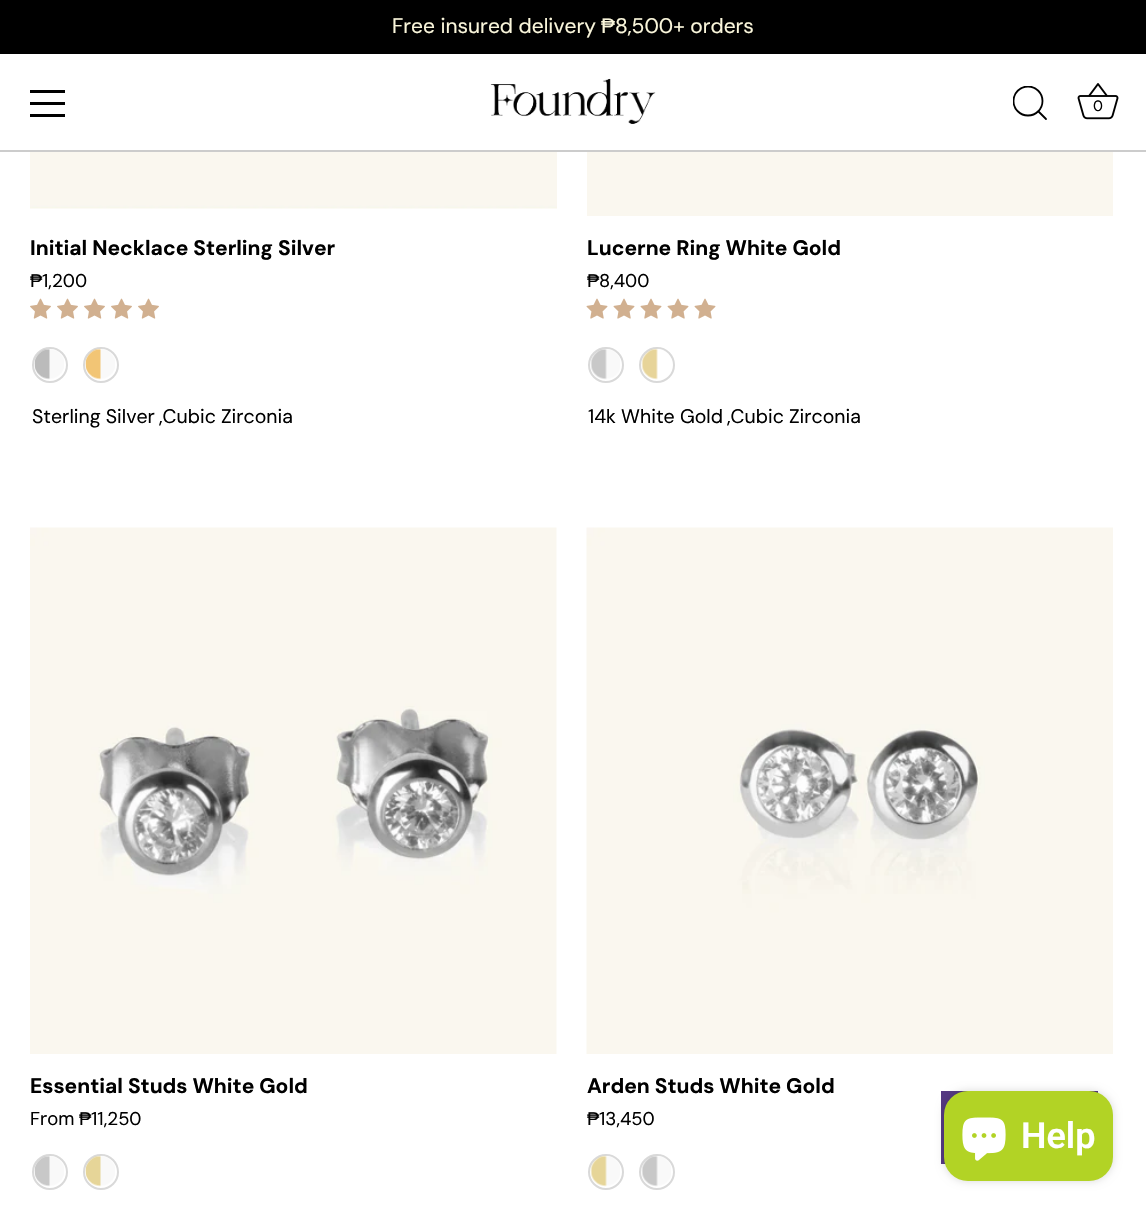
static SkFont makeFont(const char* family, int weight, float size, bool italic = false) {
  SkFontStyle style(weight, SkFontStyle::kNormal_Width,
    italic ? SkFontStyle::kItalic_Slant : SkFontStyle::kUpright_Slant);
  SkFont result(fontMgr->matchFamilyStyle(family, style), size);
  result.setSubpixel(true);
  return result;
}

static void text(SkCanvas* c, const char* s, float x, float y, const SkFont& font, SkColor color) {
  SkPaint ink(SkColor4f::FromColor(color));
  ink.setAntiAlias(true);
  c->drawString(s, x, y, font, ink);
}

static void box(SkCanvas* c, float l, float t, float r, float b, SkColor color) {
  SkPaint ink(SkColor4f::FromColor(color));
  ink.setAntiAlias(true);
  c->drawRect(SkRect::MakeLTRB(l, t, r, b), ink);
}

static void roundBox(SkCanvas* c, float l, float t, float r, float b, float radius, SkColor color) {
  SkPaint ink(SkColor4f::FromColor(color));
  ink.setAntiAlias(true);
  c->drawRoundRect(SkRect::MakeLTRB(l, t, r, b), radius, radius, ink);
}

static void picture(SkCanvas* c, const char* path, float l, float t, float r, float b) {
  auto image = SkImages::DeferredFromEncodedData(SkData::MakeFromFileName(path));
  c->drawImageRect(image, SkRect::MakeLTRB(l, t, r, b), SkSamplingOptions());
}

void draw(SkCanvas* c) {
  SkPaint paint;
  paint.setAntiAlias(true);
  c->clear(0xffffffff);
  box(c, 0, 0, 1146, 54, 0xff000000);
  SkFont face1 = makeFont("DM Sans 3", 400, 21);
  text(c, "Free insured delivery", 392, 33, face1, 0xfffaf6db);
  SkFont face2 = makeFont("Liberation Sans", 400, 21);
  text(c, "₱", 601, 33, face2, 0xfffaf6db);
  text(c, "8,500+ orders", 615, 33, face1, 0xfffaf6db);
  box(c, 0, 150, 1146, 152, 0xffcccccc);
  box(c, 30, 90, 65, 93, 0xff000000);
  box(c, 30, 102, 65, 105, 0xff000000);
  box(c, 30, 114, 65, 117, 0xff000000);
  picture(c, "img_01.png", 490, 78, 656, 124);
  c->save();
  c->clipRect(SkRect::MakeLTRB(1013, 86, 1049, 122));
  paint.setStyle(SkPaint::kStroke_Style);
  paint.setStrokeWidth(1.8f);
  paint.setColor(0xff000000);
  c->drawCircle(1028, 101, 14.5f, paint);
  c->restore();
  paint.setStrokeCap(SkPaint::kRound_Cap);
  paint.setStrokeJoin(SkPaint::kRound_Join);
  c->drawPath(SkPathBuilder().moveTo(1046, 119).lineTo(1038.5f, 111.5f).detach(), paint);
  picture(c, "img_02.png", 1077, 83, 1119, 120);
  SkFont face3 = makeFont("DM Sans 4", 400, 15);
  text(c, "0", 1093, 111, face3, 0xff000000);
  picture(c, "img_03.png", 30, 152, 557, 209);
  SkFont face4 = makeFont("DM Sans", 700, 21);
  text(c, "Initial Necklace Sterling Silver", 30, 255, face4, 0xff000000);
  SkFont face5 = makeFont("Liberation Sans", 400, 18.5f);
  text(c, "₱", 30, 287, face5, 0xff000000);
  SkFont face6 = makeFont("DM Sans", 400, 18.5f);
  text(c, "1,200", 42, 287, face6, 0xff000000);
  picture(c, "img_04.png", 30, 298, 51, 319);
  picture(c, "img_04.png", 57, 298, 78, 319);
  picture(c, "img_04.png", 84, 298, 105, 319);
  picture(c, "img_04.png", 111, 298, 132, 319);
  picture(c, "img_04.png", 138, 298, 159, 319);
  paint.setStrokeWidth(2);
  paint.setStrokeCap(SkPaint::kButt_Cap);
  paint.setStrokeJoin(SkPaint::kMiter_Join);
  paint.setColor(0xffd9d9d9);
  c->drawCircle(50, 365, 17, paint);
  picture(c, "img_05.png", 34, 349, 64, 380);
  c->drawCircle(101, 365, 17, paint);
  picture(c, "img_06.png", 85, 348, 115, 380);
  SkFont face7 = makeFont("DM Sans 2", 400, 19.5f);
  text(c, "Sterling Silver", 32, 423, face7, 0xff000000);
  text(c, ",Cubic Zirconia", 159, 423, face7, 0xff000000);
  picture(c, "img_07.png", 587, 152, 1113, 216);
  text(c, "Lucerne Ring White Gold", 587, 255, face4, 0xff000000);
  text(c, "₱", 587, 287, face5, 0xff000000);
  text(c, "8,400", 599, 287, face6, 0xff000000);
  picture(c, "img_08.png", 586, 298, 608, 319);
  picture(c, "img_08.png", 613, 298, 635, 319);
  picture(c, "img_08.png", 640, 298, 662, 319);
  picture(c, "img_08.png", 667, 298, 689, 319);
  picture(c, "img_08.png", 694, 298, 716, 319);
  c->drawCircle(606, 365, 17, paint);
  picture(c, "img_09.png", 590, 349, 620, 380);
  c->drawCircle(657, 365, 17, paint);
  picture(c, "img_10.png", 641, 348, 669, 380);
  text(c, "14k White Gold", 588, 423, face7, 0xff000000);
  text(c, ",Cubic Zirconia", 727, 423, face7, 0xff000000);
  picture(c, "img_11.png", 30, 527, 557, 1054);
  text(c, "Essential Studs White Gold", 30, 1093, face4, 0xff000000);
  text(c, "From", 30, 1125, face6, 0xff000000);
  text(c, "₱", 79, 1125, face5, 0xff000000);
  text(c, "11,250", 91, 1125, face6, 0xff000000);
  c->drawCircle(50, 1172, 17, paint);
  picture(c, "img_12.png", 34, 1156, 64, 1187);
  c->drawCircle(101, 1172, 17, paint);
  picture(c, "img_13.png", 85, 1155, 115, 1187);
  picture(c, "img_14.png", 586, 527, 1113, 1054);
  text(c, "Arden Studs White Gold", 587, 1093, face4, 0xff000000);
  text(c, "₱", 587, 1125, face5, 0xff000000);
  text(c, "13,450", 599, 1125, face6, 0xff000000);
  c->drawCircle(606, 1172, 17, paint);
  picture(c, "img_15.png", 590, 1155, 620, 1187);
  c->drawCircle(657, 1172, 17, paint);
  picture(c, "img_09.png", 641, 1156, 671, 1187);
  box(c, 941, 1091, 1098, 1164, 0xff553982);
  paint.setStyle(SkPaint::kFill_Style);
  paint.setColor(0x26000000);
  paint.setMaskFilter(SkMaskFilter::MakeBlur(kNormal_SkBlurStyle, 4));
  c->drawRoundRect(SkRect::MakeLTRB(944, 1091, 1113, 1181), 24, 24, paint);
  paint.setMaskFilter(nullptr);
  roundBox(c, 944, 1091, 1113, 1181, 24, 0xffb2d325);
  picture(c, "img_16.png", 962, 1117, 1006, 1161);
  SkFont face8 = makeFont("Roboto", 600, 36);
  text(c, "Help", 1021, 1148, face8, 0xffffffff);
}
